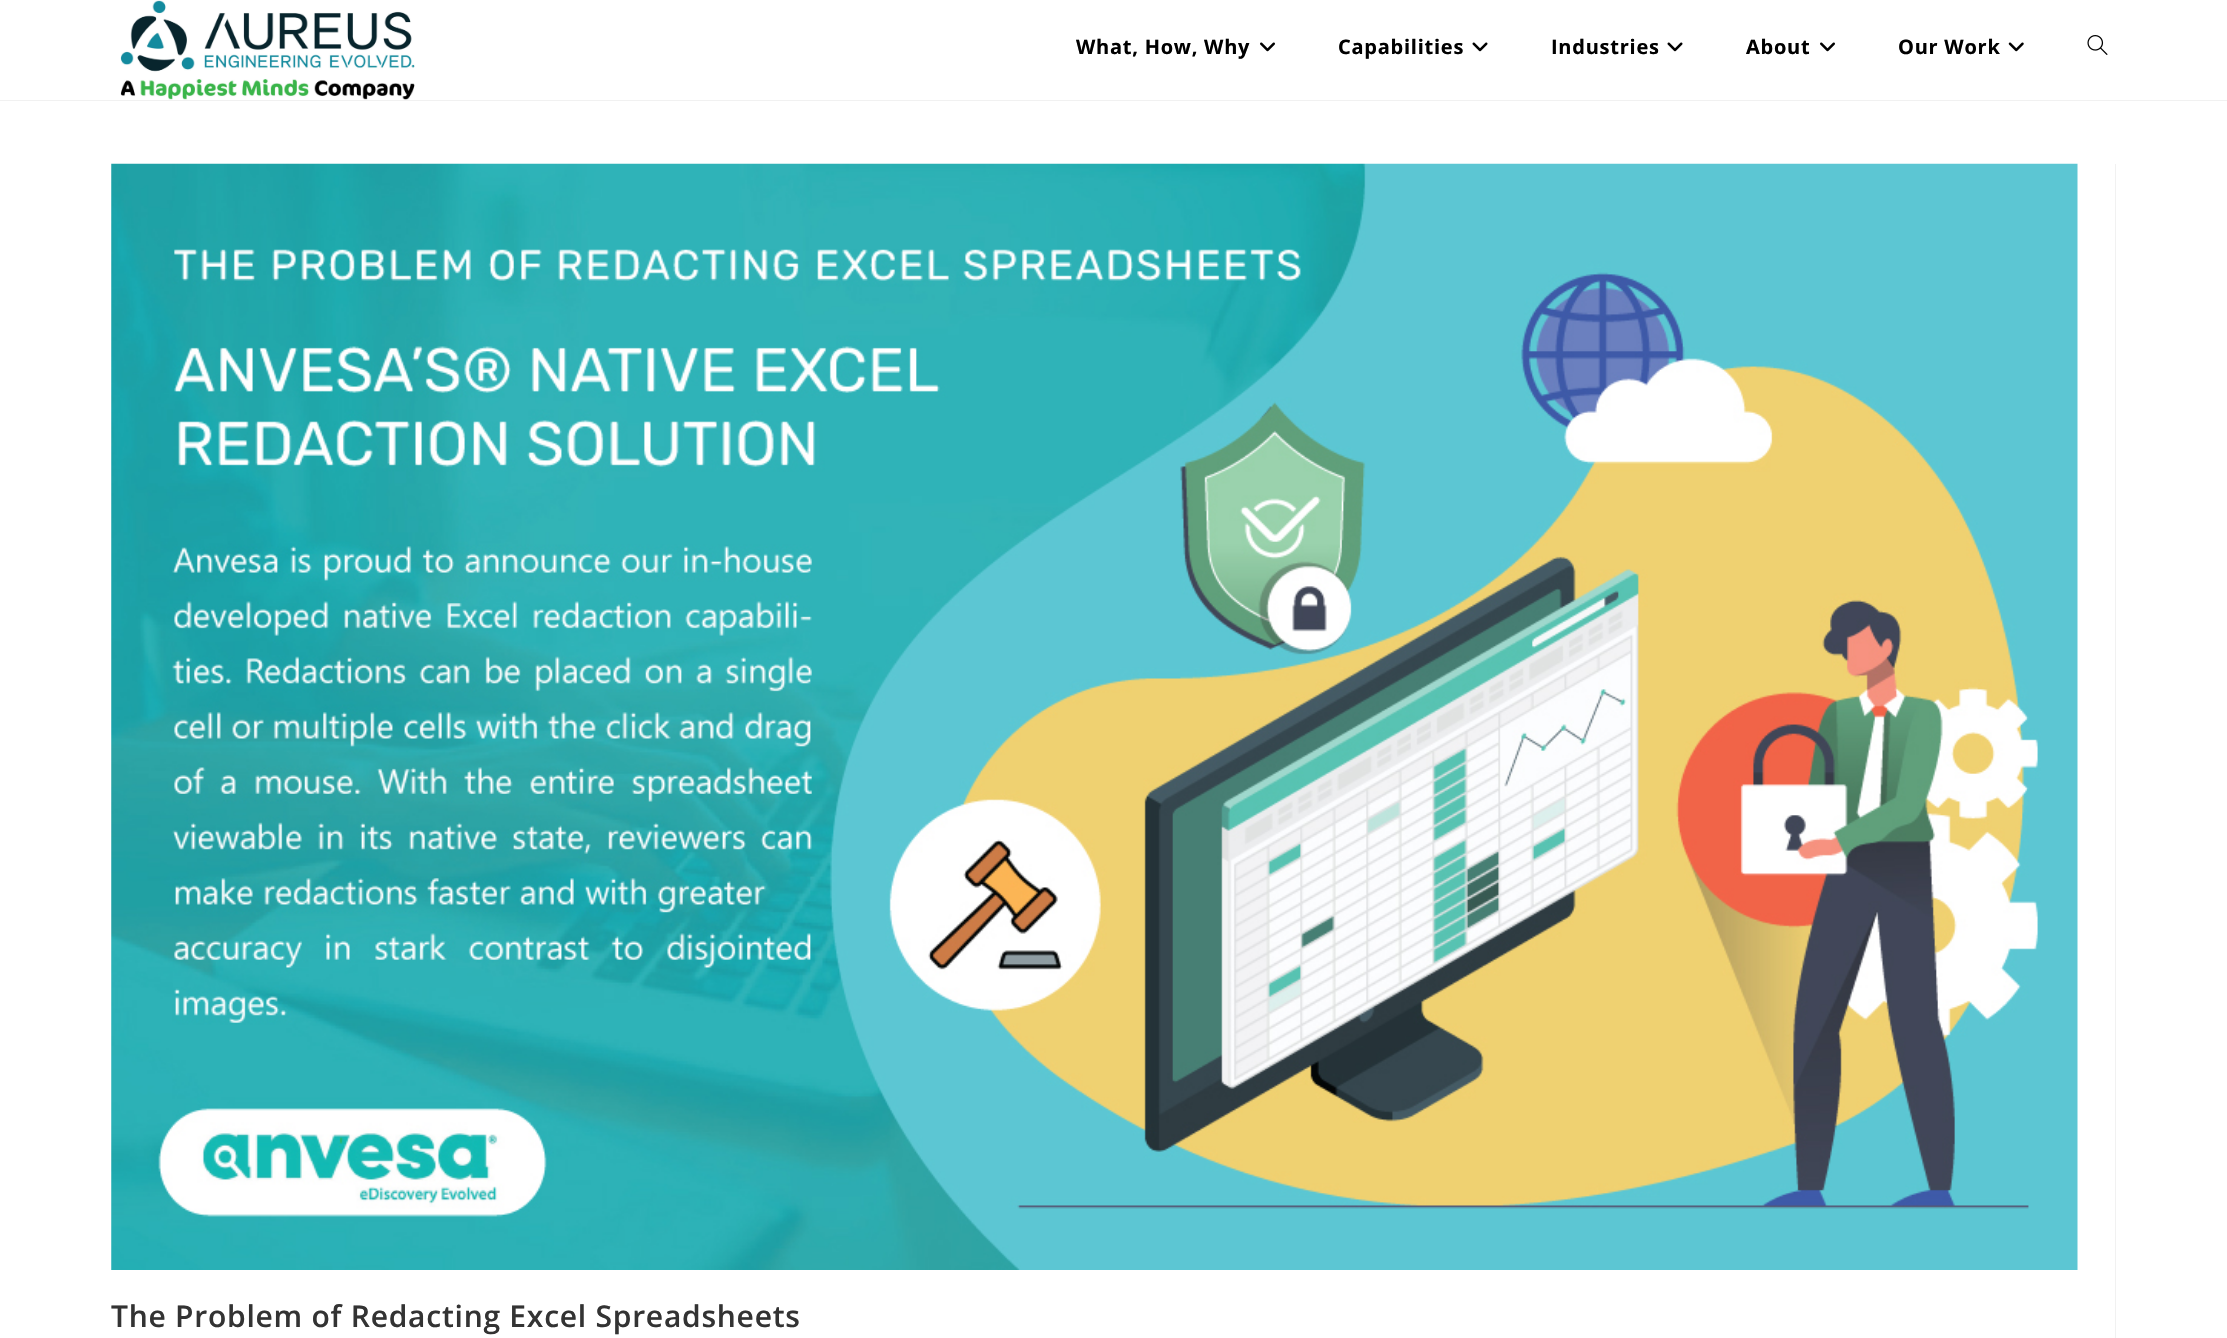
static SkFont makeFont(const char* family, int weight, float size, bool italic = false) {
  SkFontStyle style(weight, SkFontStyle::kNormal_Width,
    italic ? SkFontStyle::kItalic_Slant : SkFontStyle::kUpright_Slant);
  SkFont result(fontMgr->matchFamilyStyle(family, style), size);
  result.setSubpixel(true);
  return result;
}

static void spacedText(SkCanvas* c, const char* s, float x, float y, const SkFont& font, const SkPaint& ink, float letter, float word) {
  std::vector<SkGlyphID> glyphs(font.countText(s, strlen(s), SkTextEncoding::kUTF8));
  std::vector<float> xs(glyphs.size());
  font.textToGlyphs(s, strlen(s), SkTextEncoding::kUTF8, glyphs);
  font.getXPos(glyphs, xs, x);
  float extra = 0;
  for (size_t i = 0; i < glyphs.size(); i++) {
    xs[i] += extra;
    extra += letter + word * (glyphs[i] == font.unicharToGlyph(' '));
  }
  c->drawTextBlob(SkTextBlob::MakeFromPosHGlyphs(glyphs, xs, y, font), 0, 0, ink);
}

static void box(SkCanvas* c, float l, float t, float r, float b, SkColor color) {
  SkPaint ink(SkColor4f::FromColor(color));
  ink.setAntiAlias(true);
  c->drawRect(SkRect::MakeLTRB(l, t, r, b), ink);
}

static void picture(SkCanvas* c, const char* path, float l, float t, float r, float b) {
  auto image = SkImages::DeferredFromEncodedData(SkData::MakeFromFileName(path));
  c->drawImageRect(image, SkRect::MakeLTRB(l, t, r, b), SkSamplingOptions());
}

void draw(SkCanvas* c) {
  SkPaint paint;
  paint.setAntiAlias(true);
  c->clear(0xffffffff);
  box(c, 0, 100, 2227, 101, 0xfff1f1f1);
  picture(c, "img_01.png", 120, 0, 415, 100);
  SkFont face1 = makeFont("Open Sans", 700, 20);
  paint.setColor(0xff000000);
  spacedText(c, "What, How, Why", 1076, 54, face1, paint, 0.75f, 0);
  picture(c, "img_02.png", 1260, 42, 1275, 52);
  spacedText(c, "Capabilities", 1338, 54, face1, paint, 0.75f, 0);
  picture(c, "img_03.png", 1472, 42, 1488, 52);
  spacedText(c, "Industries", 1551, 54, face1, paint, 0.75f, 0);
  picture(c, "img_03.png", 1667, 42, 1683, 52);
  spacedText(c, "About", 1746, 54, face1, paint, 0.75f, 0);
  picture(c, "img_02.png", 1820, 42, 1835, 52);
  spacedText(c, "Our Work", 1898, 54, face1, paint, 0.75f, 0);
  picture(c, "img_04.png", 2008, 42, 2024, 52);
  picture(c, "img_05.png", 2087, 35, 2108, 55);
  box(c, 2115, 164, 2116, 1338, 0xfff1f1f1);
  picture(c, "img_06.png", 111, 163, 2078, 1270);
  SkFont face2 = makeFont("Open Sans", 600, 30);
  paint.setColor(0xff333333);
  spacedText(c, "The Problem of Redacting Excel Spreadsheets", 111, 1327, face2, paint, 0.75f, 0);
}
